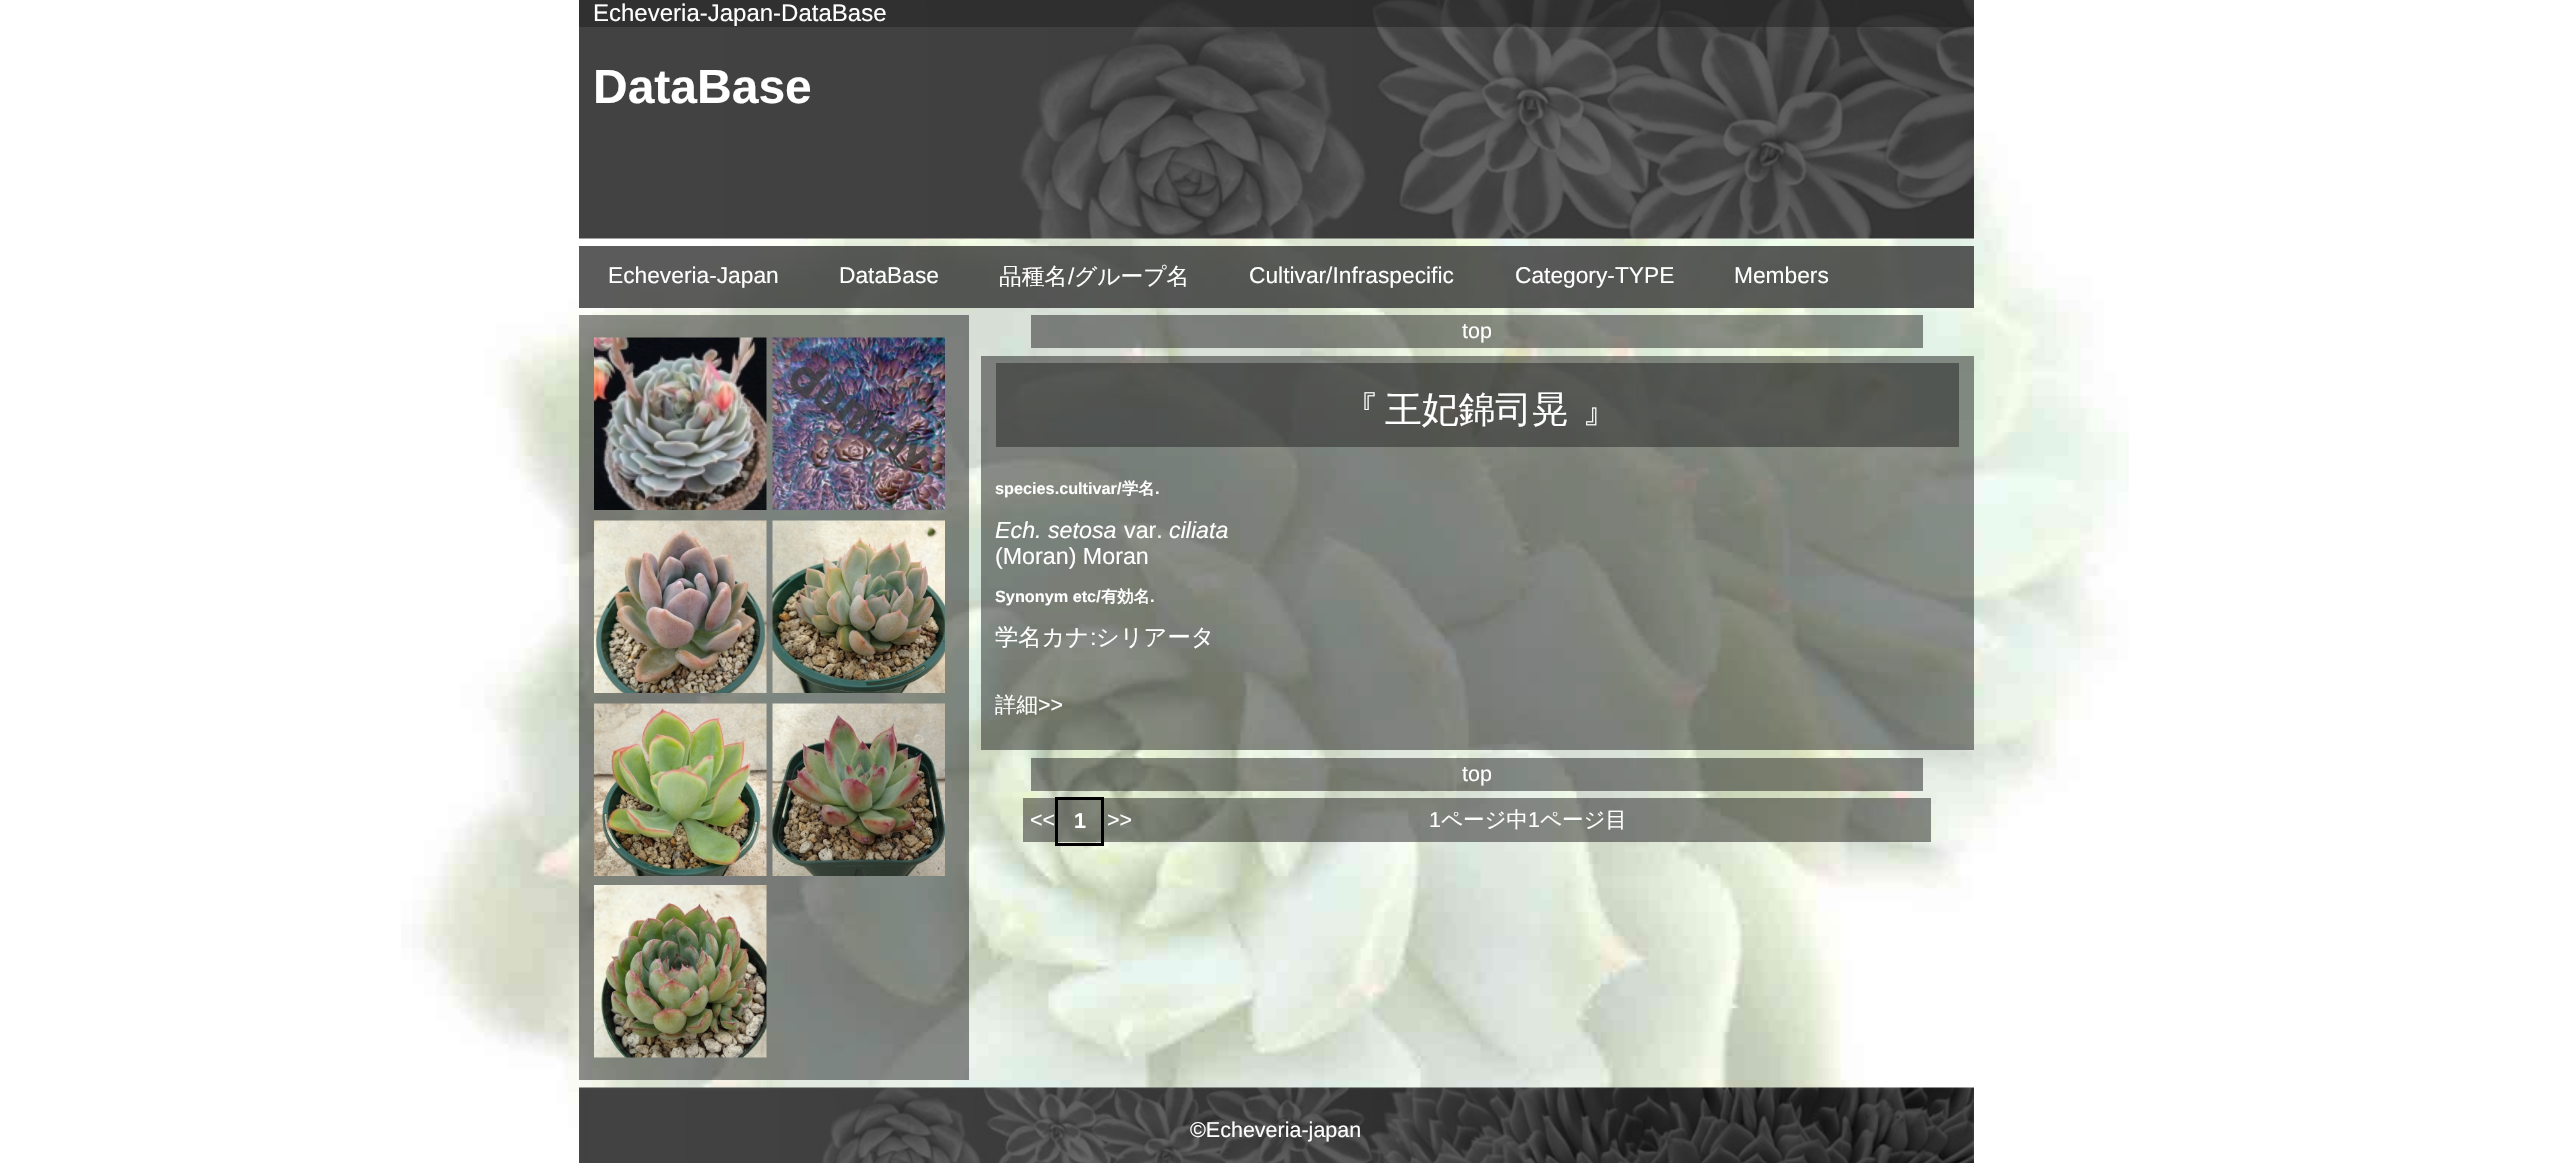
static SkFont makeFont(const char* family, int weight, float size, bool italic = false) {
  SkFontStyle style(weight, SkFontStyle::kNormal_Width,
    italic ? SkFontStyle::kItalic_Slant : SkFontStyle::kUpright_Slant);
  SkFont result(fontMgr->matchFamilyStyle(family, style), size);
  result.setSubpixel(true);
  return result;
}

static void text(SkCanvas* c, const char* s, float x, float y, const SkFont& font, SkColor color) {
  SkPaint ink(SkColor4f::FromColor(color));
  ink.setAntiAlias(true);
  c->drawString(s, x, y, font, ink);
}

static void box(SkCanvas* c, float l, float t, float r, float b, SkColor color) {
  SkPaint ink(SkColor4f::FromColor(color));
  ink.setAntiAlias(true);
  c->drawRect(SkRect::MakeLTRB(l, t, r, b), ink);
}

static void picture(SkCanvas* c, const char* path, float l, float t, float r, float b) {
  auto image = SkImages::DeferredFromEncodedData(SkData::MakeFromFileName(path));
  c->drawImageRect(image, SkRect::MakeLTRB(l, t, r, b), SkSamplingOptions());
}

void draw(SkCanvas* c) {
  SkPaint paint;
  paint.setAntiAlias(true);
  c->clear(0xffffffff);
  picture(c, "img_01.png", 401, 47, 2129, 1163);
  picture(c, "img_02.png", 579, 0, 1974, 239);
  box(c, 579, 0, 1974, 27, 0x801e1e1e);
  SkFont face1 = makeFont("Liberation Sans", 400, 24);
  text(c, "Echeveria-Japan-DataBase", 593, 21, face1, 0xffffffff);
  SkFont face2 = makeFont("Liberation Sans", 700, 48);
  text(c, "DataBase", 593, 103, face2, 0xffffffff);
  box(c, 579, 246, 1974, 308, 0xcc323232);
  SkFont face3 = makeFont("Liberation Sans", 400, 22.75f);
  text(c, "Echeveria-Japan", 608, 283, face3, 0xffffffff);
  text(c, "DataBase", 839, 283, face3, 0xffffffff);
  SkFont face4 = makeFont("WenQuanYi Zen Hei", 500, 22.75f);
  text(c, "品種名", 999, 284, face4, 0xffffffff);
  text(c, "/", 1068, 284, face3, 0xffffffff);
  text(c, "グループ名", 1074, 284, face4, 0xffffffff);
  text(c, "Cultivar/Infraspecific", 1249, 283, face3, 0xffffffff);
  text(c, "Category-TYPE", 1515, 283, face3, 0xffffffff);
  text(c, "Members", 1734, 283, face3, 0xffffffff);
  box(c, 579, 315, 969, 1080, 0x801e1e1e);
  picture(c, "img_03.png", 594, 337, 767, 510);
  picture(c, "img_04.png", 772, 337, 945, 510);
  picture(c, "img_05.png", 594, 520, 767, 693);
  picture(c, "img_06.png", 772, 520, 945, 693);
  picture(c, "img_07.png", 594, 703, 767, 876);
  picture(c, "img_08.png", 772, 703, 945, 876);
  picture(c, "img_09.png", 594, 885, 767, 1058);
  box(c, 1031, 315, 1923, 348, 0x801e1e1e);
  SkFont face5 = makeFont("Liberation Sans", 400, 21.5f);
  text(c, "top", 1462, 338, face5, 0xffffffff);
  box(c, 981, 356, 1974, 750, 0x801e1e1e);
  box(c, 996, 363, 1959, 447, 0x80232323);
  SkFont face6 = makeFont("WenQuanYi Zen Hei", 500, 36.75f);
  text(c, "『", 1342, 422, face6, 0xffffffff);
  text(c, "王妃錦司晃", 1385, 422, face6, 0xffffffff);
  text(c, "』", 1582, 422, face6, 0xffffffff);
  SkFont face7 = makeFont("Liberation Sans", 700, 16.25f);
  text(c, "species.cultivar/", 995, 494, face7, 0xffffffff);
  SkFont face8 = makeFont("WenQuanYi Zen Hei", 700, 16.25f);
  text(c, "学名", 1122, 494, face8, 0xffffffff);
  text(c, ".", 1155, 494, face7, 0xffffffff);
  SkFont face9 = makeFont("Liberation Sans", 400, 23.25f, true);
  text(c, "Ech. setosa", 995, 538, face9, 0xffffffff);
  SkFont face10 = makeFont("Liberation Sans", 400, 23.25f);
  text(c, "var.", 1124, 538, face10, 0xffffffff);
  text(c, "ciliata", 1169, 538, face9, 0xffffffff);
  text(c, "(Moran) Moran", 995, 564, face10, 0xffffffff);
  text(c, "Synonym etc/", 995, 602, face7, 0xffffffff);
  text(c, "有効名", 1101, 602, face8, 0xffffffff);
  text(c, ".", 1150, 602, face7, 0xffffffff);
  SkFont face11 = makeFont("WenQuanYi Zen Hei", 500, 23.25f);
  text(c, "学名カナ", 995, 645, face11, 0xffffffff);
  text(c, ":", 1090, 645, face10, 0xffffffff);
  text(c, "シリアータ", 1096, 645, face11, 0xffffffff);
  SkFont face12 = makeFont("WenQuanYi Zen Hei", 500, 21.5f);
  text(c, "詳細", 995, 712, face12, 0xffffffff);
  text(c, ">>", 1038, 712, face5, 0xffffffff);
  box(c, 1031, 758, 1923, 791, 0x801e1e1e);
  text(c, "top", 1462, 781, face5, 0xffffffff);
  box(c, 1023, 798, 1931, 842, 0x801e1e1e);
  text(c, "<<", 1030, 827, face5, 0xffffffff);
  paint.setStyle(SkPaint::kStroke_Style);
  paint.setStrokeWidth(3);
  paint.setColor(0xff000000);
  c->drawRect(SkRect::MakeLTRB(1056.5f, 798.5f, 1102.5f, 844.5f), paint);
  SkFont face13 = makeFont("Liberation Sans", 700, 21.5f);
  text(c, "1", 1074, 828, face13, 0xffffffff);
  text(c, ">>", 1107, 827, face5, 0xffffffff);
  text(c, "1", 1429, 827, face5, 0xffffffff);
  text(c, "ページ中", 1441, 827, face12, 0xffffffff);
  text(c, "1", 1528, 827, face5, 0xffffffff);
  text(c, "ページ目", 1540, 827, face12, 0xffffffff);
  picture(c, "img_10.png", 579, 1087, 1974, 1163);
  text(c, "©Echeveria-japan", 1190, 1137, face5, 0xffffffff);
}
